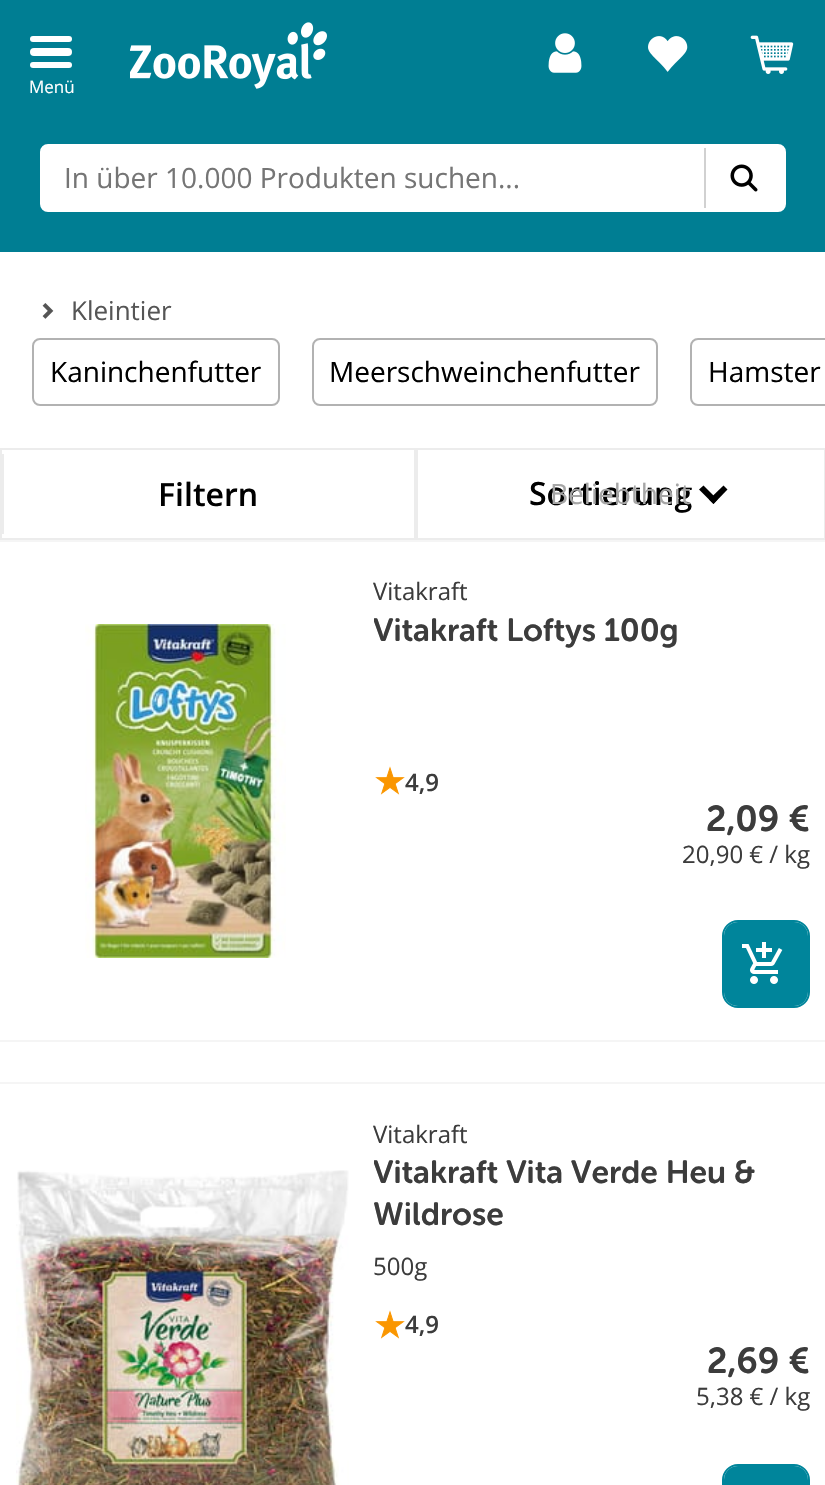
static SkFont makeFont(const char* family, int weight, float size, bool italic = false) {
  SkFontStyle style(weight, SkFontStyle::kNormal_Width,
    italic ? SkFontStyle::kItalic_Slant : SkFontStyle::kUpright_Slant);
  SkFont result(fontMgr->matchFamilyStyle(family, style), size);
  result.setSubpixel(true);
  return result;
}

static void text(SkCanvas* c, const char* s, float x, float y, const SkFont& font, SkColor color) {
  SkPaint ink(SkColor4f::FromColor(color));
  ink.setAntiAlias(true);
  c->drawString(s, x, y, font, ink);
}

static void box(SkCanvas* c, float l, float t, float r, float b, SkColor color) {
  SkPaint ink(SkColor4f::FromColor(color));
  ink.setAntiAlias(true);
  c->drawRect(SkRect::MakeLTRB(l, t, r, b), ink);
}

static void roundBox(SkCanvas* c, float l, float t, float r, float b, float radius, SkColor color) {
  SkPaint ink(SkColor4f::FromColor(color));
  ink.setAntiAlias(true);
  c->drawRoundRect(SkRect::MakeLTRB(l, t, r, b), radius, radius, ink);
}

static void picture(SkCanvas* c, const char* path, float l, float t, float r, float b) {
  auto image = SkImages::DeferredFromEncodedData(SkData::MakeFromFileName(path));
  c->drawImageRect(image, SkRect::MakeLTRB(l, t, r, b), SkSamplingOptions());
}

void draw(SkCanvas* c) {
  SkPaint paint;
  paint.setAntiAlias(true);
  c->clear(0xffffffff);
  box(c, 0, 0, 825, 252, 0xff007e93);
  picture(c, "img_01.png", 130, 22, 327, 89);
  picture(c, "img_02.png", 548, 33, 582, 73);
  picture(c, "img_03.png", 648, 36, 688, 72);
  picture(c, "img_04.png", 750, 35, 794, 74);
  roundBox(c, 30, 36, 72, 42, 3, 0xffffffff);
  roundBox(c, 30, 48, 72, 56, 4, 0xffffffff);
  roundBox(c, 30, 62, 72, 68, 3, 0xffffffff);
  SkFont face1 = makeFont("Open Sans", 400, 17);
  text(c, "Menü", 29, 93, face1, 0xffffffff);
  paint.setStyle(SkPaint::kStroke_Style);
  paint.setStrokeWidth(4);
  paint.setColor(0xffffffff);
  c->drawRoundRect(SkRect::MakeLTRB(42, 146, 784, 210), 6, 6, paint);
  box(c, 44, 148, 704, 208, 0xffffffff);
  SkFont face2 = makeFont("Open Sans", 400, 28);
  text(c, "In über 10.000 Produkten suchen...", 64, 188, face2, 0xff757575);
  box(c, 706, 148, 782, 208, 0xffffffff);
  box(c, 704, 148, 706, 208, 0xffd1d1d1);
  picture(c, "img_05.png", 730, 164, 758, 192);
  picture(c, "img_06.png", 42, 303, 54, 319);
  SkFont face3 = makeFont("Open Sans", 400, 26);
  text(c, "Kleintier", 71, 320, face3, 0xff555555);
  paint.setStrokeWidth(2);
  paint.setColor(0xffb2b2b2);
  c->drawRoundRect(SkRect::MakeLTRB(33, 339, 279, 405), 7, 7, paint);
  text(c, "Kaninchenfutter", 50, 382, face2, 0xff000000);
  c->drawRoundRect(SkRect::MakeLTRB(313, 339, 657, 405), 7, 7, paint);
  text(c, "Meerschweinchenfutter", 329, 382, face2, 0xff000000);
  c->drawRoundRect(SkRect::MakeLTRB(691, 339, 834, 405), 7, 7, paint);
  text(c, "Hamster", 708, 382, face2, 0xff000000);
  paint.setColor(0xffececec);
  c->drawRect(SkRect::MakeLTRB(1, 449, 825, 539), paint);
  box(c, 2, 454, 4, 534, 0xffececec);
  SkFont face4 = makeFont("Open Sans", 600, 32);
  text(c, "Filtern", 158, 506, face4, 0xff000000);
  box(c, 414, 450, 418, 538, 0xffececec);
  text(c, "Sortierung", 529, 505, face4, 0xff000000);
  paint.setStyle(SkPaint::kFill_Style);
  paint.setColor(0xff000000);
  c->drawPath(SkPathBuilder().moveTo(723.5f, 485.5f).lineTo(727.5f, 489.5f).lineTo(713.5f, 504).lineTo(709, 499.5f).close().detach(), paint);
  c->drawPath(SkPathBuilder().moveTo(703.5f, 485.5f).lineTo(717.5f, 499.5f).lineTo(713.5f, 504).lineTo(699, 489.5f).close().detach(), paint);
  text(c, "Beliebtheit", 550, 504, face2, 0xffa6a6a6);
  box(c, 0, 540, 825, 542, 0xfff5f5f5);
  box(c, 0, 1040, 825, 1042, 0xfff5f5f5);
  picture(c, "img_07.png", 85, 624, 286, 958);
  SkFont face5 = makeFont("Open Sans", 400, 24);
  text(c, "Vitakraft", 373, 600, face5, 0xff3c3c3c);
  c->save();
  c->clipRect(SkRect::MakeLTRB(374, 610, 810, 690));
  SkFont face6 = makeFont("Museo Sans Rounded", 600, 32);
  text(c, "Vitakraft Loftys 100g", 373, 641, face6, 0xff3c3c3c);
  c->restore();
  picture(c, "img_08.png", 375, 766, 405, 795);
  SkFont face7 = makeFont("Open Sans", 600, 24);
  text(c, "4,9", 405, 791, face7, 0xff3c3c3c);
  SkFont face8 = makeFont("Museo Sans Rounded", 600, 36);
  text(c, "2,09 €", 706, 831, face8, 0xff3c3c3c);
  text(c, "20,90 € / kg", 682, 863, face5, 0xff3c3c3c);
  paint.setStyle(SkPaint::kStroke_Style);
  paint.setColor(0xff00859b);
  c->drawRoundRect(SkRect::MakeLTRB(723, 921, 809, 1007), 15, 15, paint);
  roundBox(c, 724, 922, 808, 1006, 14, 0xff00859b);
  picture(c, "img_09.png", 742, 942, 783, 984);
  box(c, 0, 1082, 825, 1084, 0xfff5f5f5);
  picture(c, "img_10.png", 16, 1170, 349, 1485);
  text(c, "Vitakraft", 373, 1143, face5, 0xff3c3c3c);
  c->save();
  c->clipRect(SkRect::MakeLTRB(374, 1154, 810, 1234));
  text(c, "Vitakraft Vita Verde Heu &", 373, 1183, face6, 0xff3c3c3c);
  c->restore();
  text(c, "Wildrose", 373, 1225, face6, 0xff3c3c3c);
  text(c, "500g", 373, 1275, face5, 0xff3c3c3c);
  picture(c, "img_08.png", 375, 1310, 405, 1339);
  text(c, "4,9", 405, 1333, face7, 0xff3c3c3c);
  text(c, "2,69 €", 707, 1373, face8, 0xff3c3c3c);
  text(c, "5,38 € / kg", 696, 1405, face5, 0xff3c3c3c);
  c->drawRoundRect(SkRect::MakeLTRB(723, 1465, 809, 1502), 15, 15, paint);
  roundBox(c, 724, 1466, 808, 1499, 14, 0xff00859b);
}
